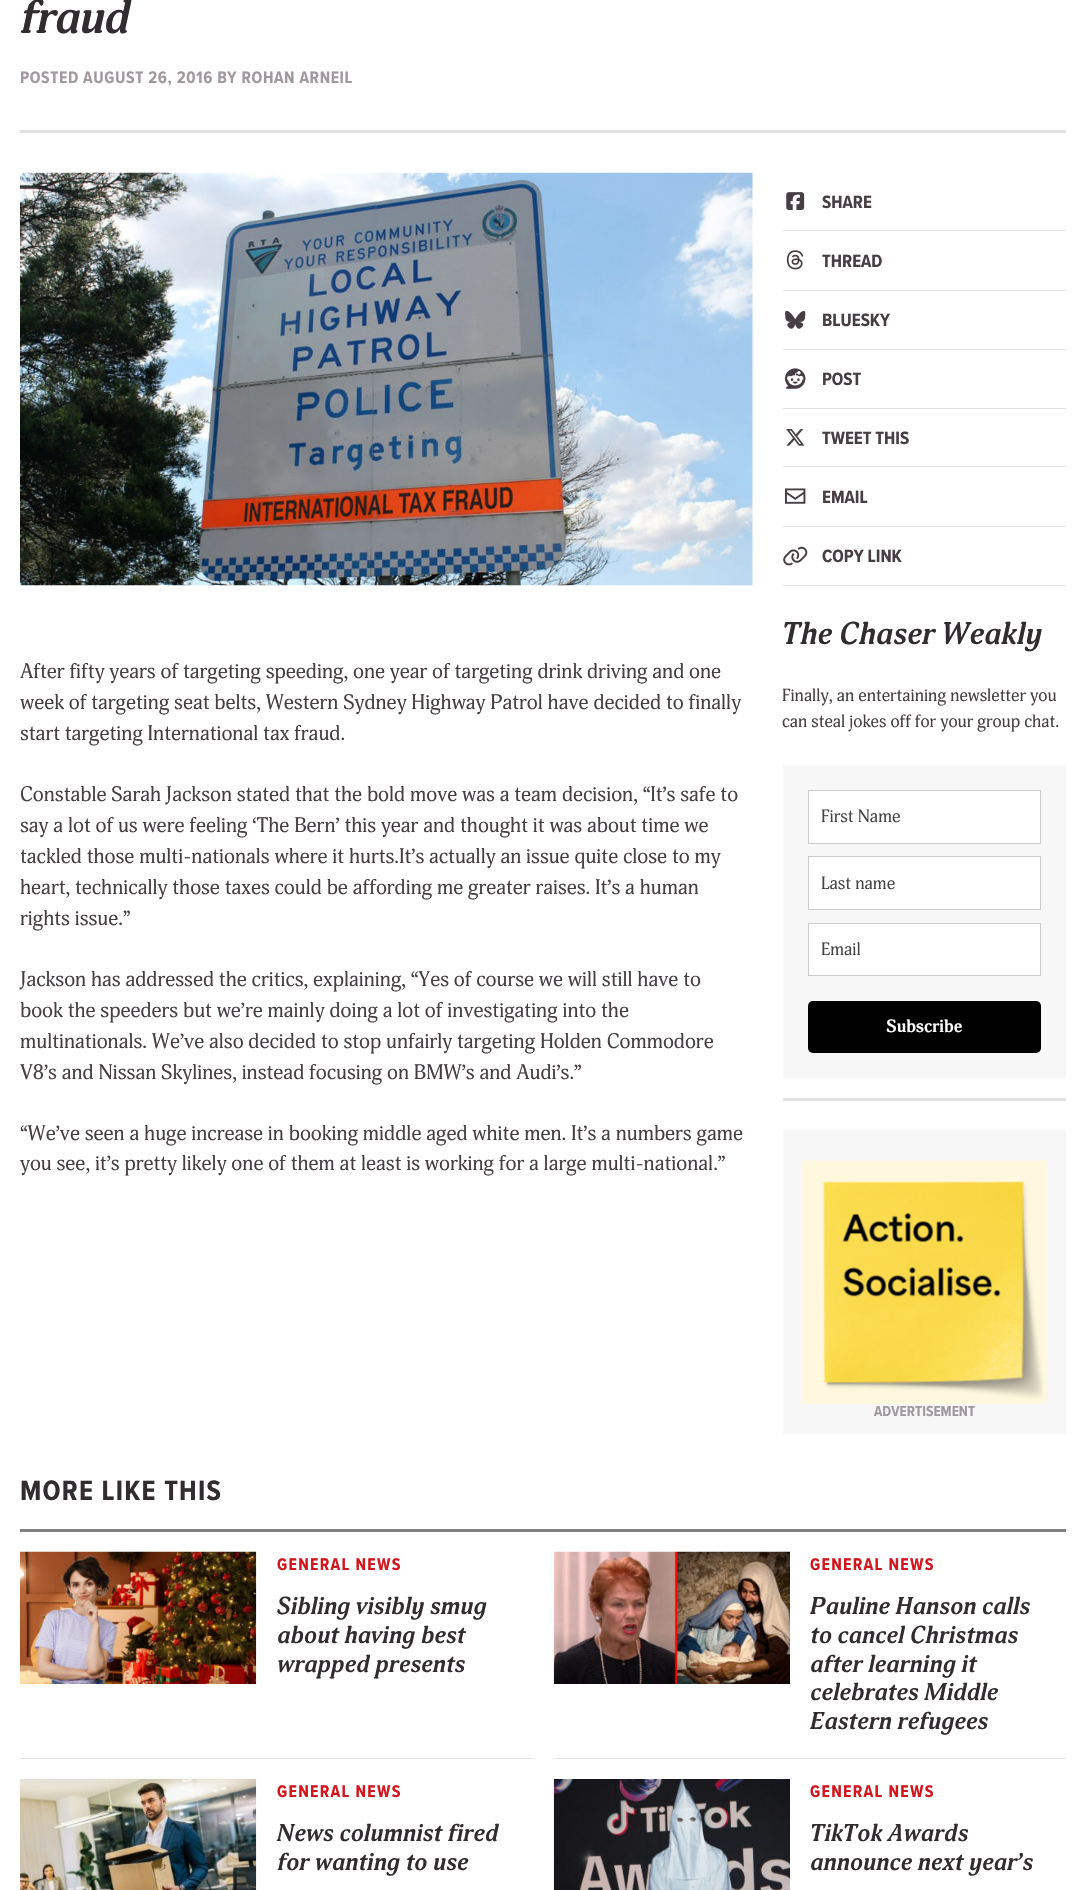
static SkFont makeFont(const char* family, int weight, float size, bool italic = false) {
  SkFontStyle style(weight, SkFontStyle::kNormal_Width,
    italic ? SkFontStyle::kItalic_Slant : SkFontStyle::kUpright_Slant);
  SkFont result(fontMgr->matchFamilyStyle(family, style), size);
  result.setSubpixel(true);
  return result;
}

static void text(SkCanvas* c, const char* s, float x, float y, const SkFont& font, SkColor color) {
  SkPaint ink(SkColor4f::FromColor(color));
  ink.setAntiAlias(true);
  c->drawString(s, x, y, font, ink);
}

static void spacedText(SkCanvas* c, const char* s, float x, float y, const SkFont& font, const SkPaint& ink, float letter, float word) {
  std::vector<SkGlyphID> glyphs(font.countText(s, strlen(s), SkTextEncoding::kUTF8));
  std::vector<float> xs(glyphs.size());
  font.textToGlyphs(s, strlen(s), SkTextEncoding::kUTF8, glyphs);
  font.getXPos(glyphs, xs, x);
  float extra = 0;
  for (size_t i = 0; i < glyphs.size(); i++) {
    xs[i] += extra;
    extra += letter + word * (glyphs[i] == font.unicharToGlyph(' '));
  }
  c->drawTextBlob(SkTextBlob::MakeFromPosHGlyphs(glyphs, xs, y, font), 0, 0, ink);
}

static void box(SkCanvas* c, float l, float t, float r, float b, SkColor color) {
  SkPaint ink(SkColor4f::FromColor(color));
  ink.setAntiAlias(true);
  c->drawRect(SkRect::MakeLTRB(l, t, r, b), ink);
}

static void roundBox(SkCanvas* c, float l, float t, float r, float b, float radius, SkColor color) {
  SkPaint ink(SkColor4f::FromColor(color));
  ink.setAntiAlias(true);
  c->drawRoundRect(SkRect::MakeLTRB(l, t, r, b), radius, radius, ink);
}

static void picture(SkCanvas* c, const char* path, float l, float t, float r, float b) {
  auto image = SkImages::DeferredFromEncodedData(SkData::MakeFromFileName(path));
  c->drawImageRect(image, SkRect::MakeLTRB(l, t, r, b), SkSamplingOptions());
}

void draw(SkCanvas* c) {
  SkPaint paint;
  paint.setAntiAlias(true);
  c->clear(0xffffffff);
  SkFont face1 = makeFont("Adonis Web", 700, 47, true);
  paint.setColor(0xff312c2f);
  spacedText(c, "fraud", 20, 33, face1, paint, -1.25f, 0);
  SkFont face2 = makeFont("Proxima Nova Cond", 700, 17.25f);
  paint.setColor(0xffa1999e);
  spacedText(c, "POSTED AUGUST 26, 2016 BY ROHAN ARNEIL", 20, 83, face2, paint, 0.6f, 0);
  box(c, 20, 130, 1066, 133, 0xffe3e1e2);
  picture(c, "img_01.png", 20, 172, 753, 586);
  SkFont face3 = makeFont("Adonis Web", 400, 20.6f);
  text(c, "After fifty years of targeting speeding, one year of targeting drink driving and one", 20, 678, face3, 0xff463e43);
  text(c, "week of targeting seat belts, Western Sydney Highway Patrol have decided to finally", 20, 709, face3, 0xff463e43);
  text(c, "start targeting International tax fraud.", 20, 740, face3, 0xff463e43);
  text(c, "Constable Sarah Jackson stated that the bold move was a team decision, “It’s safe to", 20, 801, face3, 0xff463e43);
  text(c, "say a lot of us were feeling ‘The Bern’ this year and thought it was about time we", 20, 832, face3, 0xff463e43);
  text(c, "tackled those multi-nationals where it hurts.It’s actually an issue quite close to my", 20, 863, face3, 0xff463e43);
  text(c, "heart, technically those taxes could be affording me greater raises. It’s a human", 20, 894, face3, 0xff463e43);
  text(c, "rights issue.”", 20, 925, face3, 0xff463e43);
  text(c, "Jackson has addressed the critics, explaining, “Yes of course we will still have to", 20, 986, face3, 0xff463e43);
  text(c, "book the speeders but we’re mainly doing a lot of investigating into the", 20, 1017, face3, 0xff463e43);
  text(c, "multinationals. We’ve also decided to stop unfairly targeting Holden Commodore", 20, 1048, face3, 0xff463e43);
  text(c, "V8’s and Nissan Skylines, instead focusing on BMW’s and Audi’s.”", 20, 1079, face3, 0xff463e43);
  text(c, "“We’ve seen a huge increase in booking middle aged white men. It’s a numbers game", 20, 1140, face3, 0xff463e43);
  text(c, "you see, it’s pretty likely one of them at least is working for a large multi-national.”", 20, 1170, face3, 0xff463e43);
  box(c, 783, 230, 1066, 231, 0xffe3e1e2);
  picture(c, "img_02.png", 786, 192, 805, 210);
  SkFont face4 = makeFont("Proxima Nova Cond", 700, 18.5f);
  text(c, "SHARE", 822, 208, face4, 0xff463e43);
  box(c, 783, 290, 1066, 291, 0xffe3e1e2);
  picture(c, "img_03.png", 786, 250, 804, 270);
  text(c, "THREAD", 822, 267, face4, 0xff463e43);
  box(c, 783, 349, 1066, 350, 0xffe3e1e2);
  picture(c, "img_04.png", 785, 310, 806, 329);
  text(c, "BLUESKY", 822, 326, face4, 0xff463e43);
  box(c, 783, 408, 1066, 409, 0xffe3e1e2);
  picture(c, "img_05.png", 785, 368, 806, 389);
  text(c, "POST", 822, 385, face4, 0xff463e43);
  box(c, 783, 466, 1066, 467, 0xffe3e1e2);
  picture(c, "img_06.png", 786, 429, 805, 446);
  text(c, "TWEET THIS", 822, 444, face4, 0xff463e43);
  box(c, 783, 526, 1066, 527, 0xffe3e1e2);
  picture(c, "img_07.png", 785, 488, 806, 504);
  text(c, "EMAIL", 822, 503, face4, 0xff463e43);
  box(c, 783, 585, 1066, 586, 0xffe3e1e2);
  picture(c, "img_08.png", 783, 546, 808, 566);
  text(c, "COPY LINK", 822, 562, face4, 0xff463e43);
  SkFont face5 = makeFont("Adonis Web", 700, 31, true);
  text(c, "The Chaser Weakly", 782, 644, face5, 0xff312c2f);
  SkFont face6 = makeFont("Adonis Web", 400, 17.25f);
  text(c, "Finally, an entertaining newsletter you", 782, 701, face6, 0xff463e43);
  text(c, "can steal jokes off for your group chat.", 782, 727, face6, 0xff463e43);
  box(c, 783, 765, 1066, 1078, 0xfff7f7f7);
  paint.setColor(0xffffffff);
  c->drawRect(SkRect::MakeLTRB(808.5f, 790.5f, 1040.5f, 843.5f), paint);
  paint.setStyle(SkPaint::kStroke_Style);
  paint.setStrokeWidth(1);
  paint.setColor(0xffcccccc);
  c->drawRect(SkRect::MakeLTRB(808.5f, 790.5f, 1040.5f, 843.5f), paint);
  SkFont face7 = makeFont("Adonis Web", 400, 17.5f);
  text(c, "First Name", 821, 822, face7, 0xff444444);
  paint.setStyle(SkPaint::kFill_Style);
  paint.setColor(0xffffffff);
  c->drawRect(SkRect::MakeLTRB(808.5f, 856.5f, 1040.5f, 909.5f), paint);
  paint.setStyle(SkPaint::kStroke_Style);
  paint.setColor(0xffcccccc);
  c->drawRect(SkRect::MakeLTRB(808.5f, 856.5f, 1040.5f, 909.5f), paint);
  text(c, "Last name", 821, 889, face7, 0xff444444);
  paint.setStyle(SkPaint::kFill_Style);
  paint.setColor(0xffffffff);
  c->drawRect(SkRect::MakeLTRB(808.5f, 923.5f, 1040.5f, 975.5f), paint);
  paint.setStyle(SkPaint::kStroke_Style);
  paint.setColor(0xffcccccc);
  c->drawRect(SkRect::MakeLTRB(808.5f, 923.5f, 1040.5f, 975.5f), paint);
  text(c, "Email", 821, 955, face7, 0xff444444);
  roundBox(c, 808, 1001, 1041, 1053, 5, 0xff000000);
  SkFont face8 = makeFont("Adonis Web", 700, 17.5f);
  text(c, "Subscribe", 886, 1032, face8, 0xffffffff);
  box(c, 783, 1098, 1066, 1101, 0xffe3e1e2);
  box(c, 783, 1130, 1066, 1434, 0xfff7f7f7);
  picture(c, "img_09.png", 802, 1160, 1047, 1405);
  SkFont face9 = makeFont("Proxima Nova Cond", 700, 15);
  text(c, "ADVERTISEMENT", 874, 1416, face9, 0xffa1999e);
  SkFont face10 = makeFont("Proxima Nova Cond", 700, 29);
  paint.setStyle(SkPaint::kFill_Style);
  paint.setColor(0xff312c2f);
  spacedText(c, "MORE LIKE THIS", 20, 1500, face10, paint, 1.25f, 0);
  box(c, 20, 1529, 1066, 1532, 0xff808080);
  box(c, 20, 1758, 534, 1759, 0xffe3e1e2);
  picture(c, "img_10.png", 20, 1551, 257, 1684);
  SkFont face11 = makeFont("Proxima Nova Cond", 700, 17.5f);
  paint.setColor(0xffd2161e);
  spacedText(c, "GENERAL NEWS", 277, 1570, face11, paint, 1.25f, 0);
  SkFont face12 = makeFont("Adonis Web", 700, 24.1f, true);
  text(c, "Sibling visibly smug", 277, 1614, face12, 0xff312c2f);
  text(c, "about having best", 277, 1643, face12, 0xff312c2f);
  text(c, "wrapped presents", 277, 1672, face12, 0xff312c2f);
  box(c, 554, 1758, 1066, 1759, 0xffe3e1e2);
  picture(c, "img_11.png", 553, 1551, 790, 1684);
  spacedText(c, "GENERAL NEWS", 810, 1570, face11, paint, 1.25f, 0);
  text(c, "Pauline Hanson calls", 810, 1614, face12, 0xff312c2f);
  text(c, "to cancel Christmas", 810, 1643, face12, 0xff312c2f);
  text(c, "after learning it", 810, 1672, face12, 0xff312c2f);
  text(c, "celebrates Middle", 810, 1700, face12, 0xff312c2f);
  text(c, "Eastern refugees", 810, 1729, face12, 0xff312c2f);
  picture(c, "img_12.png", 20, 1779, 257, 1890);
  spacedText(c, "GENERAL NEWS", 277, 1797, face11, paint, 1.25f, 0);
  text(c, "News columnist fired", 277, 1841, face12, 0xff312c2f);
  text(c, "for wanting to use", 277, 1870, face12, 0xff312c2f);
  picture(c, "img_13.png", 553, 1779, 790, 1890);
  spacedText(c, "GENERAL NEWS", 810, 1797, face11, paint, 1.25f, 0);
  text(c, "TikTok Awards", 810, 1841, face12, 0xff312c2f);
  text(c, "announce next year’s", 810, 1870, face12, 0xff312c2f);
}
